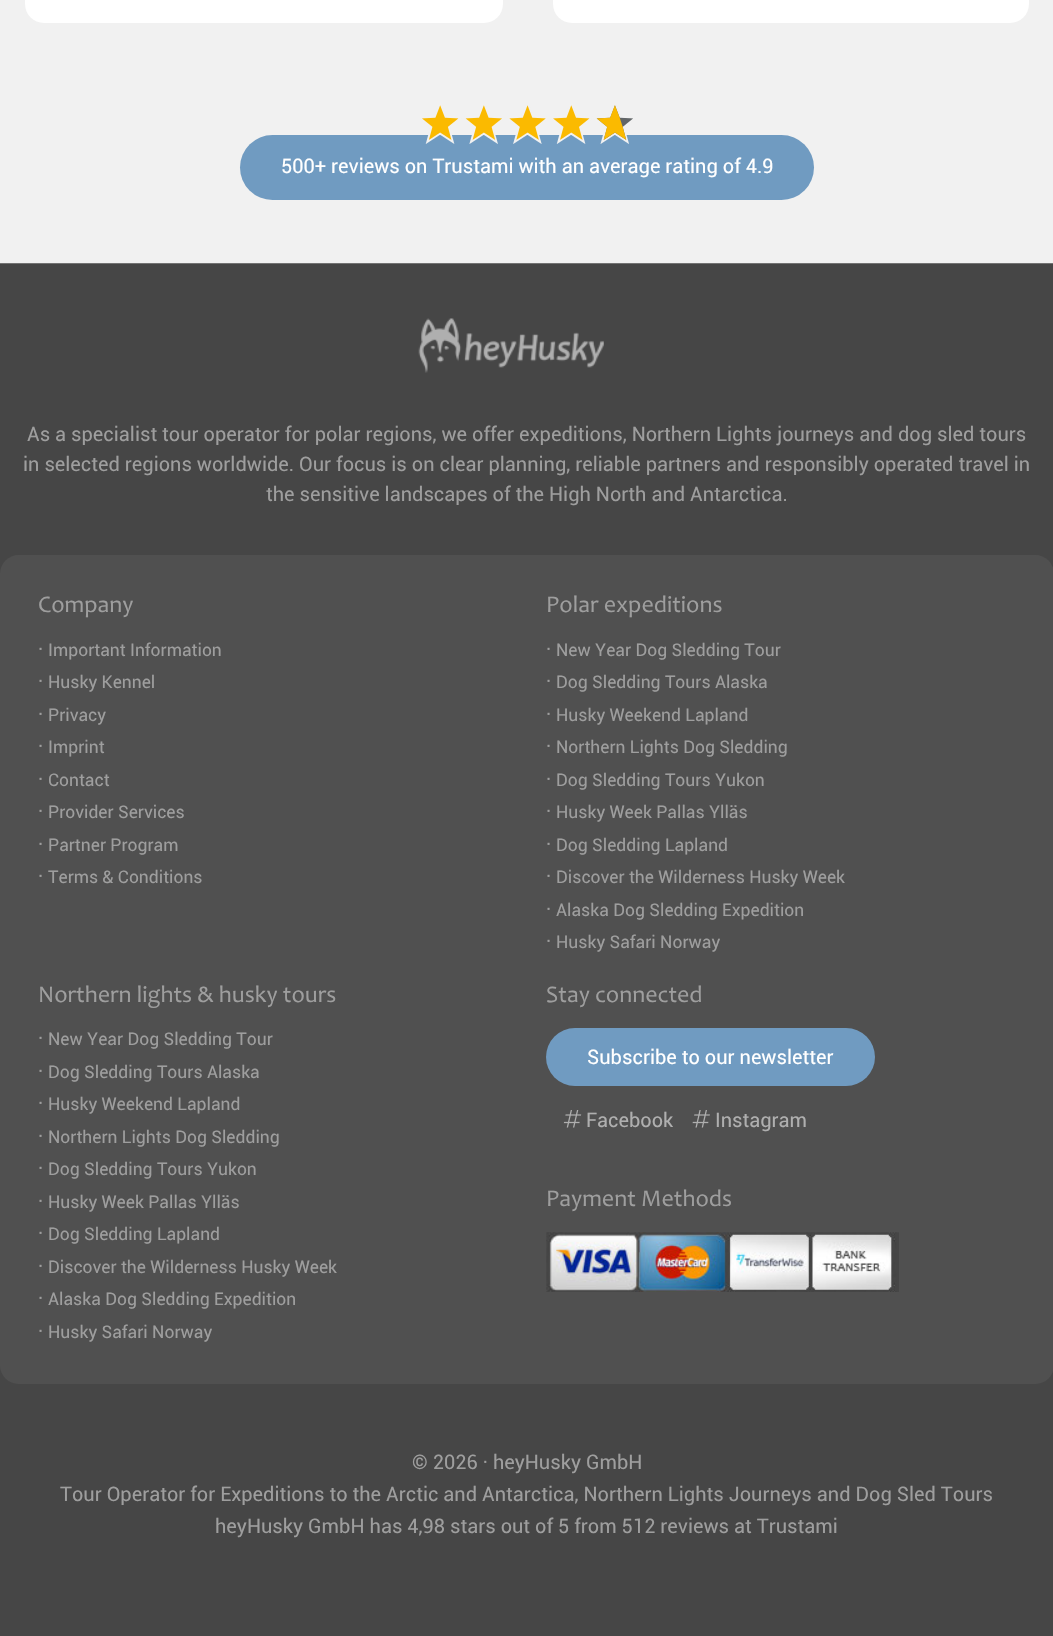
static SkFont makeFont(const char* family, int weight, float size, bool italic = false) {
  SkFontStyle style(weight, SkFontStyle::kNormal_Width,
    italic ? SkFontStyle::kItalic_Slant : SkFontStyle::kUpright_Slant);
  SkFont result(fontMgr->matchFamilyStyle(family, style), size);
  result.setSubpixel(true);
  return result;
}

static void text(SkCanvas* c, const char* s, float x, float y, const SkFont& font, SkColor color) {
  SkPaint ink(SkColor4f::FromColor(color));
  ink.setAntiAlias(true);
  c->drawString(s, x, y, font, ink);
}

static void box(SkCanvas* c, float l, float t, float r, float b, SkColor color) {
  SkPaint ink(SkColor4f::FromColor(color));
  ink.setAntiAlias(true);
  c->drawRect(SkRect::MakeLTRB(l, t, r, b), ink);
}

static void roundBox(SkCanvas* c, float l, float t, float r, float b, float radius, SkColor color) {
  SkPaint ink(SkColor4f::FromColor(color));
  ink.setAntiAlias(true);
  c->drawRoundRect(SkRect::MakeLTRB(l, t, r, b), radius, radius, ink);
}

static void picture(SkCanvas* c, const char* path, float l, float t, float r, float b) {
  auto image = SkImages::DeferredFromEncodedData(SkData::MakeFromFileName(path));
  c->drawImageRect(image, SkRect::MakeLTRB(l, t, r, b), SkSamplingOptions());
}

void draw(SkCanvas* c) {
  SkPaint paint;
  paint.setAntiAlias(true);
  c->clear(0xfff1f1f1);
  paint.setColor(0xffffffff);
  c->drawPath(SkPathBuilder().moveTo(25, -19).lineTo(503, -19).lineTo(503, 4).cubicTo(503, 14.5f, 494.5f, 23, 484, 23).lineTo(44, 23).cubicTo(33.5f, 23, 25, 14.5f, 25, 4).close().detach(), paint);
  c->drawPath(SkPathBuilder().moveTo(553, -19).lineTo(1029, -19).lineTo(1029, 4).cubicTo(1029, 14.5f, 1020.5f, 23, 1010, 23).lineTo(572, 23).cubicTo(561.5f, 23, 553, 14.5f, 553, 4).close().detach(), paint);
  roundBox(c, 240, 135, 814, 200, 32.5f, 0xff709bc1);
  picture(c, "img_01.png", 422, 105, 633, 144);
  SkFont face1 = makeFont("Roboto", 400, 20);
  text(c, "500+ reviews on Trustami with an average rating of 4.9", 281, 173, face1, 0xffffffff);
  box(c, 0, 264, 1053, 1636, 0xff464646);
  box(c, 0, 263, 1053, 264, 0xff737373);
  picture(c, "img_02.png", 418, 318, 604, 373);
  text(c, "As a specialist tour operator for polar regions, we offer expeditions, Northern Lights journeys and dog sled tours", 27, 441, face1, 0xff9e9e9e);
  text(c, "in selected regions worldwide. Our focus is on clear planning, reliable partners and responsibly operated travel in", 23, 471, face1, 0xff9e9e9e);
  text(c, "the sensitive landscapes of the High North and Antarctica.", 266, 501, face1, 0xff9e9e9e);
  roundBox(c, 0, 555, 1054, 1384, 19, 0xff505050);
  SkFont face2 = makeFont("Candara", 400, 24);
  text(c, "Company", 38, 612, face2, 0xff9e9e9e);
  text(c, "·", 38, 656, face1, 0xff9e9e9e);
  SkFont face3 = makeFont("Roboto", 400, 17.5f);
  text(c, "Important Information", 48, 656, face3, 0xff9e9e9e);
  text(c, "·", 38, 688, face1, 0xff9e9e9e);
  text(c, "Husky Kennel", 48, 688, face3, 0xff9e9e9e);
  text(c, "·", 38, 721, face1, 0xff9e9e9e);
  text(c, "Privacy", 48, 721, face3, 0xff9e9e9e);
  text(c, "·", 38, 753, face1, 0xff9e9e9e);
  text(c, "Imprint", 48, 753, face3, 0xff9e9e9e);
  text(c, "·", 38, 786, face1, 0xff9e9e9e);
  text(c, "Contact", 48, 786, face3, 0xff9e9e9e);
  text(c, "·", 38, 818, face1, 0xff9e9e9e);
  text(c, "Provider Services", 48, 818, face3, 0xff9e9e9e);
  text(c, "·", 38, 851, face1, 0xff9e9e9e);
  text(c, "Partner Program", 48, 851, face3, 0xff9e9e9e);
  text(c, "·", 38, 883, face1, 0xff9e9e9e);
  text(c, "Terms & Conditions", 48, 883, face3, 0xff9e9e9e);
  text(c, "Polar expeditions", 546, 612, face2, 0xff9e9e9e);
  text(c, "·", 546, 656, face1, 0xff9e9e9e);
  text(c, "New Year Dog Sledding Tour", 556, 656, face3, 0xff9e9e9e);
  text(c, "·", 546, 688, face1, 0xff9e9e9e);
  text(c, "Dog Sledding Tours Alaska", 556, 688, face3, 0xff9e9e9e);
  text(c, "·", 546, 721, face1, 0xff9e9e9e);
  text(c, "Husky Weekend Lapland", 556, 721, face3, 0xff9e9e9e);
  text(c, "·", 546, 753, face1, 0xff9e9e9e);
  text(c, "Northern Lights Dog Sledding", 556, 753, face3, 0xff9e9e9e);
  text(c, "·", 546, 786, face1, 0xff9e9e9e);
  text(c, "Dog Sledding Tours Yukon", 556, 786, face3, 0xff9e9e9e);
  text(c, "·", 546, 818, face1, 0xff9e9e9e);
  text(c, "Husky Week Pallas Ylläs", 556, 818, face3, 0xff9e9e9e);
  text(c, "·", 546, 851, face1, 0xff9e9e9e);
  text(c, "Dog Sledding Lapland", 556, 851, face3, 0xff9e9e9e);
  text(c, "·", 546, 883, face1, 0xff9e9e9e);
  text(c, "Discover the Wilderness Husky Week", 556, 883, face3, 0xff9e9e9e);
  text(c, "·", 546, 916, face1, 0xff9e9e9e);
  text(c, "Alaska Dog Sledding Expedition", 556, 916, face3, 0xff9e9e9e);
  text(c, "·", 546, 948, face1, 0xff9e9e9e);
  text(c, "Husky Safari Norway", 556, 948, face3, 0xff9e9e9e);
  text(c, "Northern lights & husky tours", 38, 1002, face2, 0xff9e9e9e);
  text(c, "·", 38, 1045, face1, 0xff9e9e9e);
  text(c, "New Year Dog Sledding Tour", 48, 1045, face3, 0xff9e9e9e);
  text(c, "·", 38, 1078, face1, 0xff9e9e9e);
  text(c, "Dog Sledding Tours Alaska", 48, 1078, face3, 0xff9e9e9e);
  text(c, "·", 38, 1110, face1, 0xff9e9e9e);
  text(c, "Husky Weekend Lapland", 48, 1110, face3, 0xff9e9e9e);
  text(c, "·", 38, 1143, face1, 0xff9e9e9e);
  text(c, "Northern Lights Dog Sledding", 48, 1143, face3, 0xff9e9e9e);
  text(c, "·", 38, 1175, face1, 0xff9e9e9e);
  text(c, "Dog Sledding Tours Yukon", 48, 1175, face3, 0xff9e9e9e);
  text(c, "·", 38, 1208, face1, 0xff9e9e9e);
  text(c, "Husky Week Pallas Ylläs", 48, 1208, face3, 0xff9e9e9e);
  text(c, "·", 38, 1240, face1, 0xff9e9e9e);
  text(c, "Dog Sledding Lapland", 48, 1240, face3, 0xff9e9e9e);
  text(c, "·", 38, 1273, face1, 0xff9e9e9e);
  text(c, "Discover the Wilderness Husky Week", 48, 1273, face3, 0xff9e9e9e);
  text(c, "·", 38, 1305, face1, 0xff9e9e9e);
  text(c, "Alaska Dog Sledding Expedition", 48, 1305, face3, 0xff9e9e9e);
  text(c, "·", 38, 1338, face1, 0xff9e9e9e);
  text(c, "Husky Safari Norway", 48, 1338, face3, 0xff9e9e9e);
  text(c, "Stay connected", 546, 1002, face2, 0xff9e9e9e);
  roundBox(c, 546, 1028, 875, 1086, 29, 0xff709bc1);
  text(c, "Subscribe to our newsletter", 587, 1064, face1, 0xffffffff);
  picture(c, "img_03.png", 563, 1110, 582, 1128);
  text(c, "Facebook", 586, 1127, face1, 0xffafafaf);
  picture(c, "img_04.png", 692, 1110, 710, 1128);
  text(c, "Instagram", 715, 1127, face1, 0xffafafaf);
  text(c, "Payment Methods", 546, 1206, face2, 0xff9e9e9e);
  picture(c, "img_05.png", 546, 1232, 899, 1292);
  text(c, "© 2026 · heyHusky GmbH", 412, 1469, face1, 0xff9e9e9e);
  text(c, "Tour Operator for Expeditions to the Arctic and Antarctica, Northern Lights Journeys and Dog Sled Tours", 60, 1501, face1, 0xff9e9e9e);
  text(c, "heyHusky GmbH has 4,98 stars out of 5 from 512 reviews at Trustami", 215, 1533, face1, 0xff9e9e9e);
}
